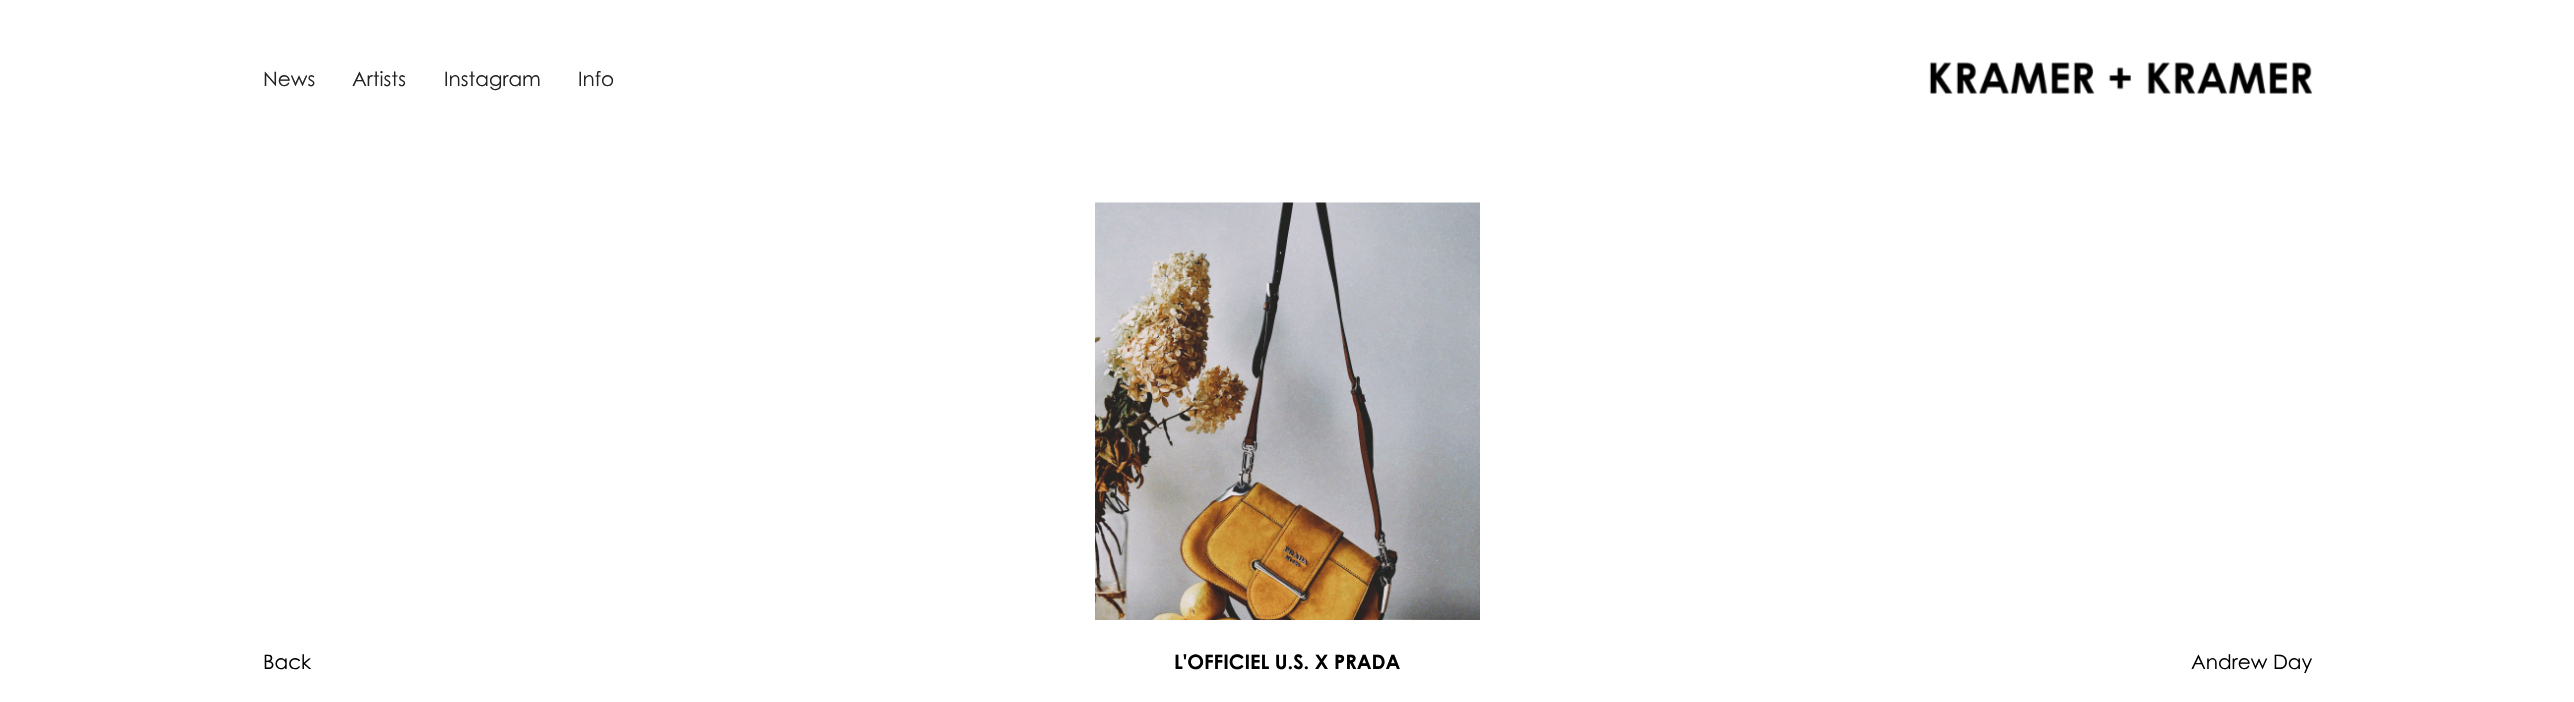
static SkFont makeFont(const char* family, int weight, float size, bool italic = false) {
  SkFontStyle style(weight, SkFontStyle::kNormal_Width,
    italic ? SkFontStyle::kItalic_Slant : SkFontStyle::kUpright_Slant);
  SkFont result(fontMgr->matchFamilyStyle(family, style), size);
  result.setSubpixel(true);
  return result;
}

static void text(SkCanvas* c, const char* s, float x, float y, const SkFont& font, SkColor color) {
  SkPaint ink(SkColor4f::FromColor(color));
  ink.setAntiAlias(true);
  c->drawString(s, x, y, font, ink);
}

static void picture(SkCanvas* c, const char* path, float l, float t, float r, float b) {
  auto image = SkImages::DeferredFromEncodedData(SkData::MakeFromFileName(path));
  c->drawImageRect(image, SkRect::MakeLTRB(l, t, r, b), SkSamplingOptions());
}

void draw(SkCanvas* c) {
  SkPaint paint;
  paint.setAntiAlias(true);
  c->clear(0xffffffff);
  SkFont face1 = makeFont("Century Gothic", 400, 20);
  text(c, "News", 263, 86, face1, 0xff222222);
  text(c, "Artists", 352, 86, face1, 0xff222222);
  text(c, "Instagram", 444, 86, face1, 0xff222222);
  text(c, "Info", 578, 86, face1, 0xff222222);
  picture(c, "img_01.png", 1929, 62, 2313, 94);
  picture(c, "img_02.png", 1095, 202, 1480, 620);
  text(c, "Back", 263, 669, face1, 0xff000000);
  SkFont face2 = makeFont("Century Gothic", 700, 20);
  text(c, "L'OFFICIEL U.S. X PRADA", 1174, 669, face2, 0xff000000);
  text(c, "Andrew Day", 2191, 669, face1, 0xff000000);
}
